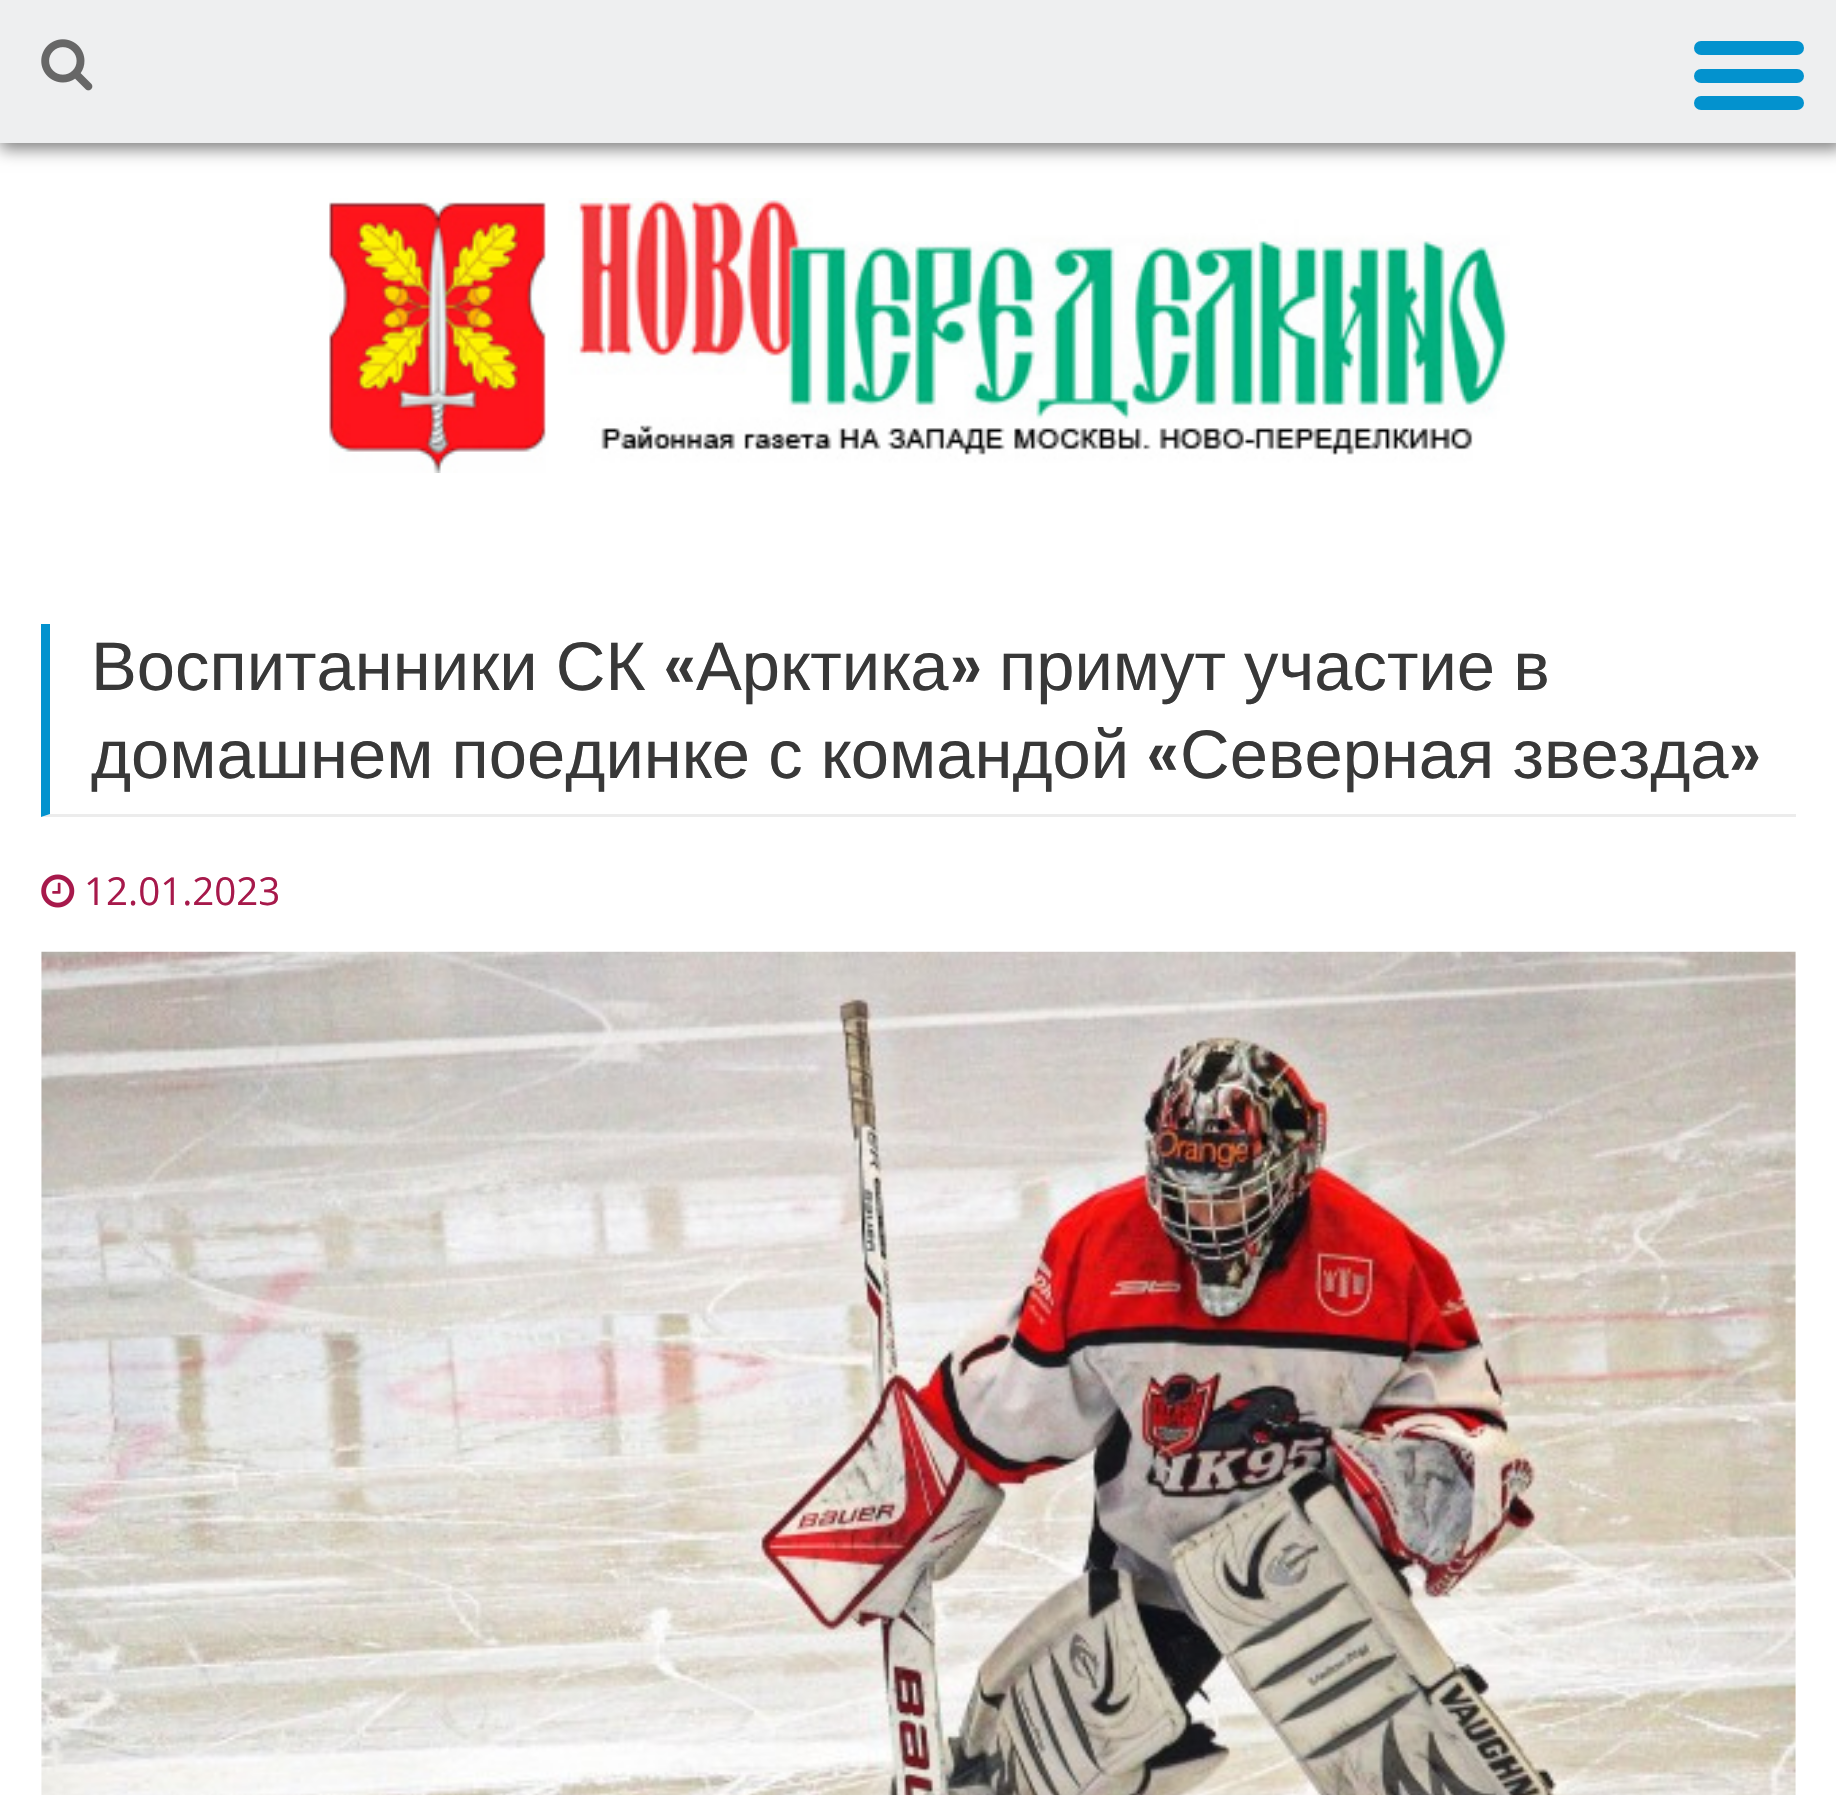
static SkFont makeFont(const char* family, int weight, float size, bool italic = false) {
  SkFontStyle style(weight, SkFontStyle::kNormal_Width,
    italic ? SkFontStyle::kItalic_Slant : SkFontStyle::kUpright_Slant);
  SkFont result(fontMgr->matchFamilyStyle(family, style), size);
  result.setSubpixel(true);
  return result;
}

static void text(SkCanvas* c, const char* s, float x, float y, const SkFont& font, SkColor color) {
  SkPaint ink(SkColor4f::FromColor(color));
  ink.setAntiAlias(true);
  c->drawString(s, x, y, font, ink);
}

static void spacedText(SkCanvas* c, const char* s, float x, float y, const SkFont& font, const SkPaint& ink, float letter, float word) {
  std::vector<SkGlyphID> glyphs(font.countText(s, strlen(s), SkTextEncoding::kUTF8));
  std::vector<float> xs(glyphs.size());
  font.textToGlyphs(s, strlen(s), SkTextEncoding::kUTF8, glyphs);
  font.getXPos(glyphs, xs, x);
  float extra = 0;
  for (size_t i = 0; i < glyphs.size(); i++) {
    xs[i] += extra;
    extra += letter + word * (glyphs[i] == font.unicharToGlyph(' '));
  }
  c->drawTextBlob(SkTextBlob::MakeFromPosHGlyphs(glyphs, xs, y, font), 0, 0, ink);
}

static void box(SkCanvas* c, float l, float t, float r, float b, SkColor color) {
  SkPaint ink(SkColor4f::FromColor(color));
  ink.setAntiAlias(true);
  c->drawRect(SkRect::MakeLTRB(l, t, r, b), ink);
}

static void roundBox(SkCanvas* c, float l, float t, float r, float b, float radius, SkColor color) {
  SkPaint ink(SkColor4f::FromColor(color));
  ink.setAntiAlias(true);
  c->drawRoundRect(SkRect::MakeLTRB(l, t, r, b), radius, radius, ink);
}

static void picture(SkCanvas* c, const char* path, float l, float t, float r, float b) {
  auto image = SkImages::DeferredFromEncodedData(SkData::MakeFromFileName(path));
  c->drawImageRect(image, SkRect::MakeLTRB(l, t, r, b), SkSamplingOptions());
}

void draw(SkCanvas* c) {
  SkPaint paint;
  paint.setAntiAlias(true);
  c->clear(0xffffffff);
  paint.setColor(0x80000000);
  paint.setMaskFilter(SkMaskFilter::MakeBlur(kNormal_SkBlurStyle, 8));
  c->drawRect(SkRect::MakeLTRB(0, 0, 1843, 149), paint);
  paint.setMaskFilter(nullptr);
  box(c, 0, 0, 1836, 143, 0xffeeeff0);
  roundBox(c, 1694, 41, 1804, 55, 7, 0xff0392ce);
  roundBox(c, 1694, 69, 1804, 83, 7, 0xff0392ce);
  roundBox(c, 1694, 96, 1804, 110, 7, 0xff0392ce);
  picture(c, "img_01.png", 41, 39, 93, 91);
  picture(c, "img_02.png", 329, 198, 1510, 473);
  paint.setColor(0xffececec);
  c->drawPath(SkPathBuilder().moveTo(1796, 817).lineTo(41, 817).lineTo(50, 814).lineTo(1796, 814).close().detach(), paint);
  paint.setColor(0xff0392ce);
  c->drawPath(SkPathBuilder().moveTo(41, 817).lineTo(41, 624).lineTo(50, 624).lineTo(50, 814).close().detach(), paint);
  SkFont face1 = makeFont("Liberation Sans", 400, 68.75f);
  paint.setColor(0xff383838);
  spacedText(c, "Воспитанники СК", 91, 690, face1, paint, 0, -1);
  SkFont face2 = makeFont("Poppins", 500, 68.75f);
  text(c, "«", 663, 690, face2, 0xff383838);
  text(c, "Арктика", 696, 690, face1, 0xff383838);
  text(c, "»", 949, 690, face2, 0xff383838);
  spacedText(c, "примут участие в", 999, 690, face1, paint, 0, -1);
  spacedText(c, "домашнем поединке с командой", 91, 778, face1, paint, 0, -1);
  text(c, "«", 1146, 778, face2, 0xff383838);
  spacedText(c, "Северная звезда", 1180, 778, face1, paint, 0, -1);
  text(c, "»", 1728, 778, face2, 0xff383838);
  picture(c, "img_03.png", 41, 874, 75, 908);
  SkFont face3 = makeFont("Open Sans", 400, 38.5f);
  text(c, "12.01.2023", 84, 905, face3, 0xffa7194b);
  picture(c, "img_04.png", 41, 951, 1796, 1795);
}
